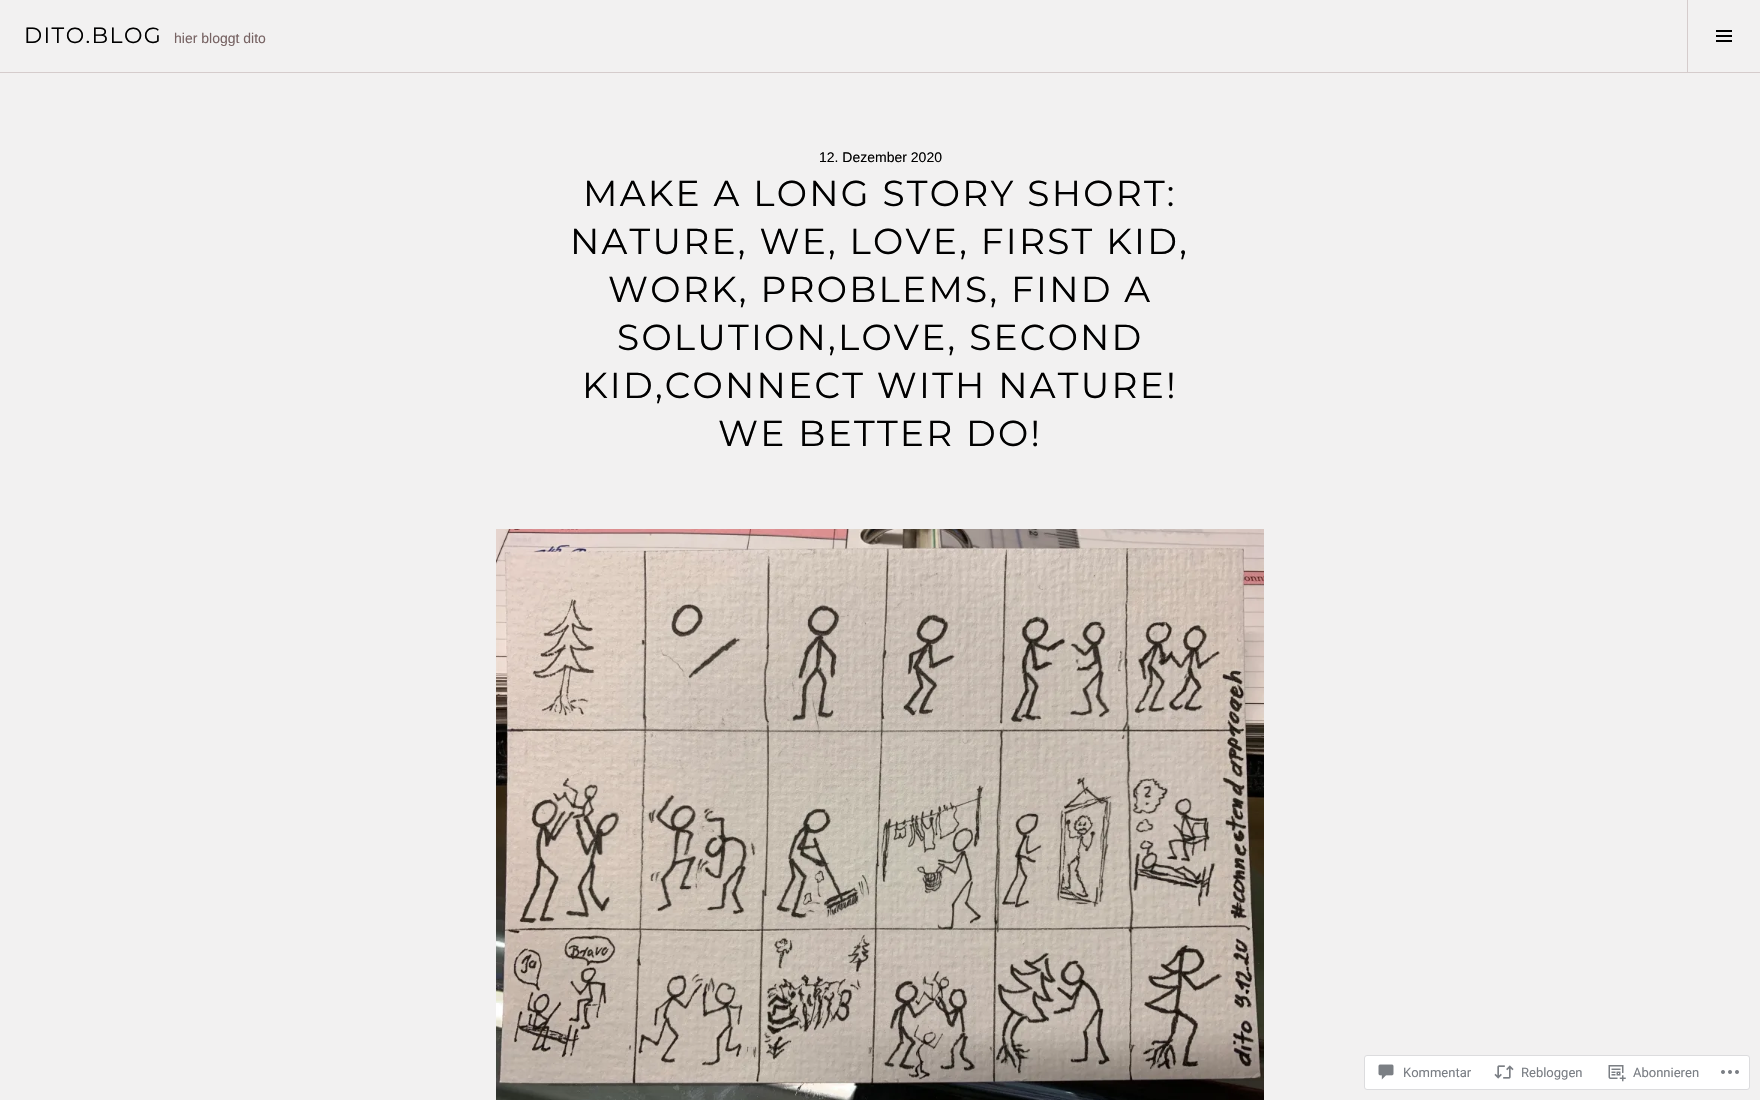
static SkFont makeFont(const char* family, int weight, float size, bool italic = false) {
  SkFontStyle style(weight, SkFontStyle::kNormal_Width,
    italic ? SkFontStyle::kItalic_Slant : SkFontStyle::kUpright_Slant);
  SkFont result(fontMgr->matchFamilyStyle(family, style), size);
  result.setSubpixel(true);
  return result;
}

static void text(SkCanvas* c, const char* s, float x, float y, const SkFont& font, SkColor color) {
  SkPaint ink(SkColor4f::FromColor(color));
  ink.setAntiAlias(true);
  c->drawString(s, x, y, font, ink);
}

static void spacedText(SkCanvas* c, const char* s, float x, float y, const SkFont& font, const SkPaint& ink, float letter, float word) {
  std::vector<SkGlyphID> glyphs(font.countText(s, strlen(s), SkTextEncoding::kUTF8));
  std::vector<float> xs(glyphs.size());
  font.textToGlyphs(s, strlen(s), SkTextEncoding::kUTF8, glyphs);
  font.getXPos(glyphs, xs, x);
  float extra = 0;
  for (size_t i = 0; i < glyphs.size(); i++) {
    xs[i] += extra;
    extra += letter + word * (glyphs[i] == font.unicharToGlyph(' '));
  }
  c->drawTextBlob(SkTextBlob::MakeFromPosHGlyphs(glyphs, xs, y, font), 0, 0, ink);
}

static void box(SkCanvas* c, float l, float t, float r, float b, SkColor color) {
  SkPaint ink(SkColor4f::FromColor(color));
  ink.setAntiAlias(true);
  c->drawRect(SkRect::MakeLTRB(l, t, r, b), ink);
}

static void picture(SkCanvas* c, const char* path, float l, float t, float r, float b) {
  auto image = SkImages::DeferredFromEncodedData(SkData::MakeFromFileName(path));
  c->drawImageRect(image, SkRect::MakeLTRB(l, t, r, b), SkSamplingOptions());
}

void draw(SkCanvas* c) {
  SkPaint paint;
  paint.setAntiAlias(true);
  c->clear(0xfff2f1f1);
  box(c, 0, 72, 1760, 73, 0xffd5cccc);
  SkFont face1 = makeFont("Montserrat", 400, 22);
  paint.setColor(0xff000000);
  spacedText(c, "DITO.BLOG", 24, 43, face1, paint, 1.4f, 0);
  SkFont face2 = makeFont("Arimo", 400, 14);
  text(c, "hier bloggt dito", 174, 43, face2, 0xff776363);
  box(c, 1687, 0, 1688, 72, 0xffd5cccc);
  picture(c, "img_01.png", 1716, 30, 1732, 42);
  text(c, "12. Dezember 2020", 819, 162, face2, 0xff000000);
  SkFont face3 = makeFont("Montserrat", 400, 36);
  spacedText(c, "MAKE A LONG STORY SHORT:", 583, 206, face3, paint, 2.25f, 0);
  spacedText(c, "NATURE, WE, LOVE, FIRST KID,", 570, 254, face3, paint, 2.25f, 0);
  spacedText(c, "WORK, PROBLEMS, FIND A", 608, 302, face3, paint, 2.25f, 0);
  spacedText(c, "SOLUTION,LOVE, SECOND", 617, 350, face3, paint, 2.25f, 0);
  spacedText(c, "KID,CONNECT WITH NATURE!", 582, 398, face3, paint, 2.25f, 0);
  spacedText(c, "WE BETTER DO!", 718, 446, face3, paint, 2.25f, 0);
  picture(c, "img_02.png", 496, 529, 1264, 1100);
  paint.setColor(0xffffffff);
  c->drawRoundRect(SkRect::MakeLTRB(1364.5f, 1055.5f, 1749.5f, 1089.5f), 2.5f, 2.5f, paint);
  paint.setStyle(SkPaint::kStroke_Style);
  paint.setStrokeWidth(1);
  paint.setColor(0xffdcdcde);
  c->drawRoundRect(SkRect::MakeLTRB(1364.5f, 1055.5f, 1749.5f, 1089.5f), 2.5f, 2.5f, paint);
  picture(c, "img_03.png", 1378, 1064, 1394, 1080);
  SkFont face4 = makeFont("Roboto", 400, 13);
  text(c, "Kommentar", 1403, 1077, face4, 0xff7a7e84);
  picture(c, "img_04.png", 1494, 1065, 1514, 1079);
  text(c, "Rebloggen", 1521, 1077, face4, 0xff7a7e84);
  picture(c, "img_05.png", 1608, 1065, 1626, 1082);
  text(c, "Abonnieren", 1633, 1077, face4, 0xff7a7e84);
  picture(c, "img_06.png", 1721, 1070, 1739, 1074);
}
